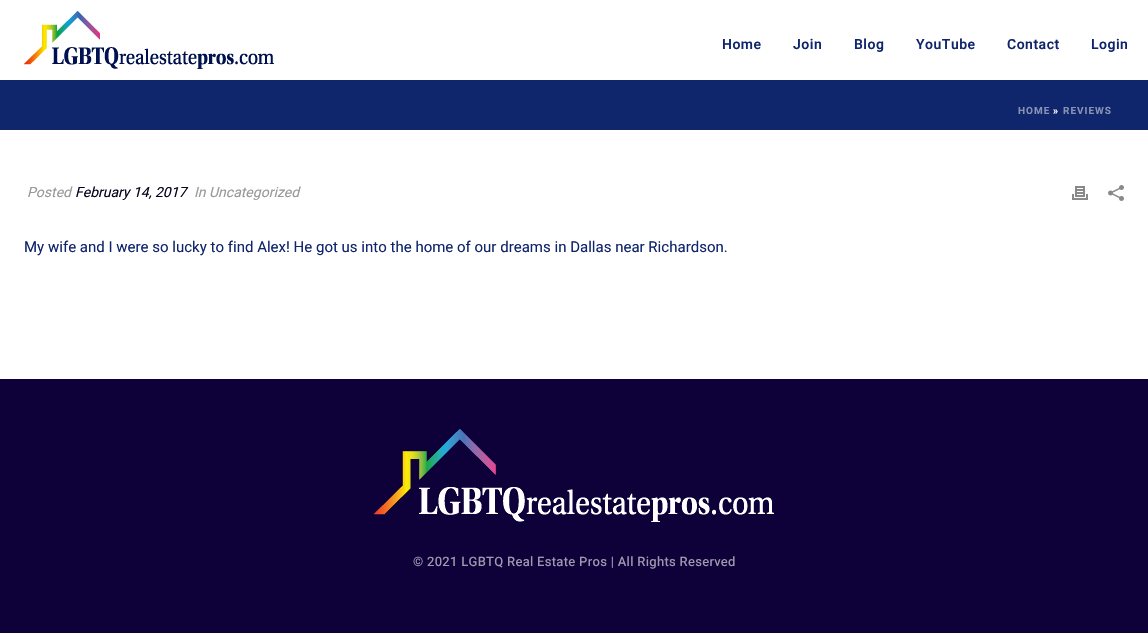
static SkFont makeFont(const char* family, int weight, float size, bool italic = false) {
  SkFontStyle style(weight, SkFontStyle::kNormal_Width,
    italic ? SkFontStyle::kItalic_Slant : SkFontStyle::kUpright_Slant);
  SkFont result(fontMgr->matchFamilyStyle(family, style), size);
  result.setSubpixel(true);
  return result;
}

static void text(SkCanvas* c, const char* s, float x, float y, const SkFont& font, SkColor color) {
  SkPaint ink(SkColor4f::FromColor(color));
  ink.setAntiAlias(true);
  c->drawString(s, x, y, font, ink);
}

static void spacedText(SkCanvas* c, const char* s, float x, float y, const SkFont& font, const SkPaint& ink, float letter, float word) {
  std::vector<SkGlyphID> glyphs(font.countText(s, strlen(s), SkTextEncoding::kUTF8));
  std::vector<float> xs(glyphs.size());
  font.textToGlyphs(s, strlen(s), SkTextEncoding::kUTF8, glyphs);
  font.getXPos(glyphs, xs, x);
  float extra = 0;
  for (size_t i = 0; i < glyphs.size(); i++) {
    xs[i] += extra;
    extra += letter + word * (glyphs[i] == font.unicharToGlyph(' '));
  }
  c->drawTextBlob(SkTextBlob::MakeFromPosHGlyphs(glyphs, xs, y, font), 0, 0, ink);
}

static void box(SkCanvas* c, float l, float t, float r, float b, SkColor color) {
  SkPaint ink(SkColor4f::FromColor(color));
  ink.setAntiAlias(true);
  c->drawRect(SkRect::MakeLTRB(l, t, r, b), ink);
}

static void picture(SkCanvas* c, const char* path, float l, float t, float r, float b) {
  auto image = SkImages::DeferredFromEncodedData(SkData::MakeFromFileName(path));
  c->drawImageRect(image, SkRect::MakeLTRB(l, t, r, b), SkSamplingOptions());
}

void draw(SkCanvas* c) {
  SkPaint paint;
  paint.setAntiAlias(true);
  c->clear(0xffffffff);
  box(c, 0, 80, 1148, 130, 0xff0f256c);
  picture(c, "img_01.png", 24, 11, 274, 69);
  SkFont face1 = makeFont("Heebo", 600, 14);
  paint.setColor(0xff0f256c);
  spacedText(c, "Home", 722, 49, face1, paint, 0.5f, 0);
  spacedText(c, "Join", 793, 49, face1, paint, 0.5f, 0);
  spacedText(c, "Blog", 854, 49, face1, paint, 0.5f, 0);
  spacedText(c, "YouTube", 916, 49, face1, paint, 0.5f, 0);
  spacedText(c, "Contact", 1007, 49, face1, paint, 0.5f, 0);
  spacedText(c, "Login", 1091, 49, face1, paint, 0.5f, 0);
  SkFont face2 = makeFont("Heebo", 700, 10);
  paint.setColor(0xff8792b6);
  spacedText(c, "HOME", 1018, 114, face2, paint, 1, 0);
  paint.setColor(0xffffffff);
  spacedText(c, "»", 1053, 114, face2, paint, 1, 0);
  paint.setColor(0xff8792b6);
  spacedText(c, "REVIEWS", 1063, 114, face2, paint, 1, 0);
  SkFont face3 = makeFont("Heebo", 400, 14, true);
  text(c, "Posted", 27, 197, face3, 0xff999999);
  text(c, "February 14, 2017", 75, 197, face3, 0xff06031b);
  text(c, "In Uncategorized", 194, 197, face3, 0xff999999);
  picture(c, "img_02.png", 1072, 186, 1088, 200);
  picture(c, "img_03.png", 1108, 185, 1124, 201);
  SkFont face4 = makeFont("Heebo", 400, 15);
  text(c, "My wife and I were so lucky to find Alex! He got us into the home of our dreams in Dallas near Richardson.", 24, 252, face4, 0xff0f256c);
  box(c, 0, 379, 1148, 633, 0xff0e0038);
  picture(c, "img_04.png", 374, 429, 774, 522);
  SkFont face5 = makeFont("Heebo", 500, 13);
  paint.setColor(0xff9f99af);
  spacedText(c, "© 2021 LGBTQ Real Estate Pros | All Rights Reserved", 413, 566, face5, paint, 0.3f, 0);
}
